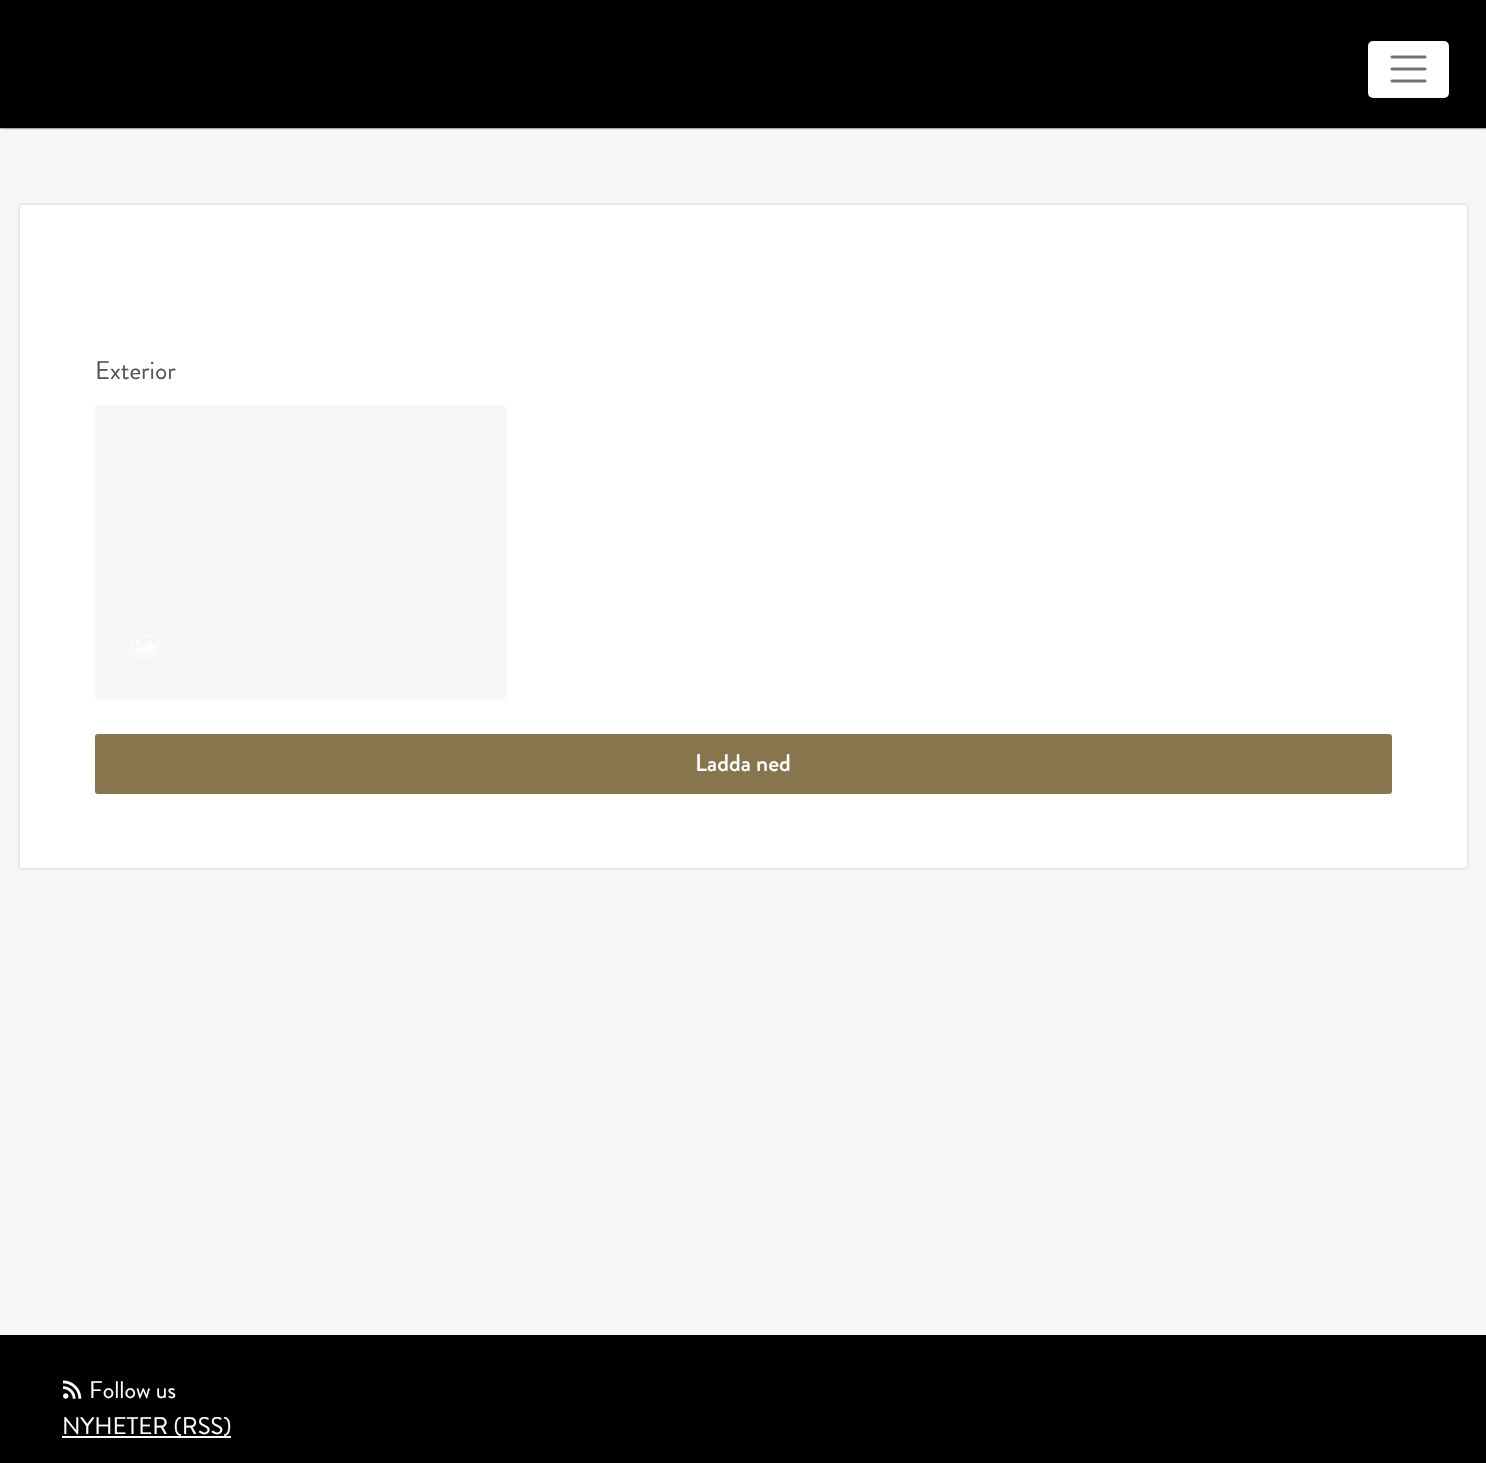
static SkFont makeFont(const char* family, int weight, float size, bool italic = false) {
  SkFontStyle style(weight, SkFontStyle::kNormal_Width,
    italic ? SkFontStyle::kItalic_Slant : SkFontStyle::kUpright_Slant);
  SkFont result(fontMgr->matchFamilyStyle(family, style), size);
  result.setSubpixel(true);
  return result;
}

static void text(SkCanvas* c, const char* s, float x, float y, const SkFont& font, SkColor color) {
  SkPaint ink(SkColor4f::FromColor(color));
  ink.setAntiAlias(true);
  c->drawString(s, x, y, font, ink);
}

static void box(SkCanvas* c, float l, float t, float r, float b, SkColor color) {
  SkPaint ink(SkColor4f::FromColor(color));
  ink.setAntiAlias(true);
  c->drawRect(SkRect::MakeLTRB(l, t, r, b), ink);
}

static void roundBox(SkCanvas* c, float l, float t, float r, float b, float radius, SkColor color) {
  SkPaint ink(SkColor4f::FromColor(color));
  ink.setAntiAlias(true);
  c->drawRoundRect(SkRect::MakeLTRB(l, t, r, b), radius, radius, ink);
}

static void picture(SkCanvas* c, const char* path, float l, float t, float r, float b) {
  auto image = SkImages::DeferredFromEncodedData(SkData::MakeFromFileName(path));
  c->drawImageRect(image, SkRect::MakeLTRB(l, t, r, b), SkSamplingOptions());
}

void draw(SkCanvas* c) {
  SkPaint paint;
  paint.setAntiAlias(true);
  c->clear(0xff000000);
  box(c, 0, 128, 1486, 1335, 0xfff6f6f6);
  paint.setColor(0xff000000);
  paint.setMaskFilter(SkMaskFilter::MakeBlur(kNormal_SkBlurStyle, 1));
  c->drawRect(SkRect::MakeLTRB(0, 0, 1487, 128), paint);
  paint.setMaskFilter(nullptr);
  roundBox(c, 1368, 41, 1449, 98, 5, 0xffffffff);
  paint.setStyle(SkPaint::kStroke_Style);
  paint.setStrokeWidth(3);
  paint.setStrokeCap(SkPaint::kRound_Cap);
  paint.setColor(0xff737373);
  c->drawPath(SkPathBuilder().moveTo(1392, 57).lineTo(1425, 57).moveTo(1392, 69).lineTo(1425, 69).moveTo(1392, 81).lineTo(1425, 81).detach(), paint);
  paint.setStyle(SkPaint::kFill_Style);
  paint.setColor(0xffffffff);
  c->drawRoundRect(SkRect::MakeLTRB(19, 204, 1468, 869), 4, 4, paint);
  paint.setStyle(SkPaint::kStroke_Style);
  paint.setStrokeWidth(2);
  paint.setStrokeCap(SkPaint::kButt_Cap);
  paint.setColor(0xffe7e7e7);
  c->drawRoundRect(SkRect::MakeLTRB(19, 204, 1468, 869), 4, 4, paint);
  SkFont face1 = makeFont("Brandon Grotesque", 400, 25.5f);
  text(c, "Exterior", 95, 379, face1, 0xff555555);
  paint.setStyle(SkPaint::kFill_Style);
  paint.setColor(0x0d000000);
  paint.setMaskFilter(SkMaskFilter::MakeBlur(kNormal_SkBlurStyle, 1.5f));
  c->drawRoundRect(SkRect::MakeLTRB(95, 407, 506, 699), 5, 5, paint);
  paint.setMaskFilter(nullptr);
  roundBox(c, 95, 405, 506, 698, 5, 0xfff6f6f6);
  picture(c, "img_01.png", 131, 635, 159, 657);
  paint.setColor(0xff86754d);
  c->drawRoundRect(SkRect::MakeLTRB(96.5f, 735.5f, 1390.5f, 792.5f), 1.5f, 1.5f, paint);
  paint.setStyle(SkPaint::kStroke_Style);
  paint.setStrokeWidth(3);
  c->drawRoundRect(SkRect::MakeLTRB(96.5f, 735.5f, 1390.5f, 792.5f), 1.5f, 1.5f, paint);
  SkFont face2 = makeFont("Brandon Grotesque", 500, 24);
  text(c, "Ladda ned", 695, 771, face2, 0xffffffff);
  picture(c, "img_02.png", 63, 1380, 82, 1399);
  SkFont face3 = makeFont("Brandon Grotesque", 400, 24);
  text(c, "Follow us", 89, 1398, face3, 0xffffffff);
  text(c, "NYHETER (RSS)", 62, 1434, face3, 0xffffffff);
  box(c, 62, 1436, 231, 1438, 0xffffffff);
}
